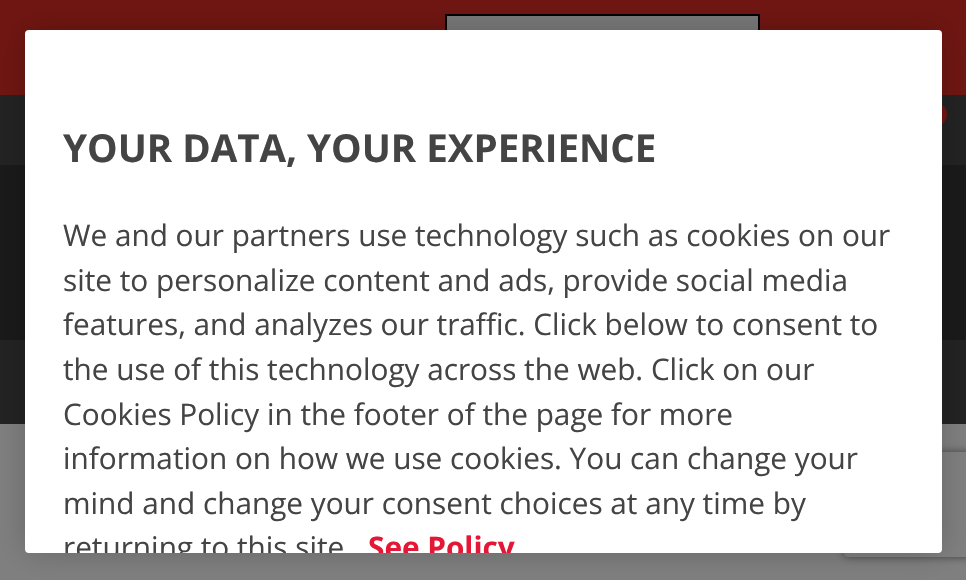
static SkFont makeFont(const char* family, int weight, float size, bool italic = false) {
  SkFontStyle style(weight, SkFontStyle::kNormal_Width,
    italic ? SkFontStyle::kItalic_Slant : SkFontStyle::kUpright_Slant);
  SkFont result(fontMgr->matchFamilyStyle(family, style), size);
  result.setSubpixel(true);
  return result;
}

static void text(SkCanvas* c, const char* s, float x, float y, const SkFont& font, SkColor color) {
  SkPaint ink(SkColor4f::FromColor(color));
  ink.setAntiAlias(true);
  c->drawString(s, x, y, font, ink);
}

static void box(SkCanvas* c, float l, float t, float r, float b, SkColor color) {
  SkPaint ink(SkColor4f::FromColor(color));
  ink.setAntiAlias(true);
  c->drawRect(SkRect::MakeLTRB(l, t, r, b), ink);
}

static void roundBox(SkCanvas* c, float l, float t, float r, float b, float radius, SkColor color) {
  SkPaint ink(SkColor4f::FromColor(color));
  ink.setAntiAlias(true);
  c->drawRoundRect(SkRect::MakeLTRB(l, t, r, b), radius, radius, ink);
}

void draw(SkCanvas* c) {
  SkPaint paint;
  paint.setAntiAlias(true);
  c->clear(0xff808080);
  box(c, 0, 0, 966, 95, 0xff701612);
  box(c, 447, 16, 758, 30, 0xff797979);
  paint.setStyle(SkPaint::kStroke_Style);
  paint.setStrokeWidth(2);
  paint.setColor(0xff000000);
  c->drawRect(SkRect::MakeLTRB(446, 15, 759, 80), paint);
  box(c, 0, 95, 966, 165, 0xff242323);
  paint.setStyle(SkPaint::kFill_Style);
  paint.setColor(0xff701612);
  c->drawCircle(935.5f, 114.5f, 11.5f, paint);
  box(c, 0, 165, 966, 340, 0xff1a1a1a);
  box(c, 0, 340, 966, 424, 0xff242323);
  paint.setColor(0x33000000);
  paint.setMaskFilter(SkMaskFilter::MakeBlur(kNormal_SkBlurStyle, 16));
  c->drawRoundRect(SkRect::MakeLTRB(25, 30, 942, 553), 4, 4, paint);
  paint.setMaskFilter(nullptr);
  c->save();
  c->clipPath(SkPathBuilder(SkPathFillType::kEvenOdd).moveTo(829, 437).lineTo(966, 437).lineTo(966, 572).lineTo(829, 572).close().moveTo(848, 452).lineTo(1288, 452).cubicTo(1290, 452, 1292, 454, 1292, 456).lineTo(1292, 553).cubicTo(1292, 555, 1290, 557, 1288, 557).lineTo(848, 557).cubicTo(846, 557, 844, 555, 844, 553).lineTo(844, 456).cubicTo(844, 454, 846, 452, 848, 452).close().detach(), true);
  paint.setColor(0xff404040);
  paint.setMaskFilter(SkMaskFilter::MakeBlur(kNormal_SkBlurStyle, 4.5f));
  c->drawRoundRect(SkRect::MakeLTRB(844, 452, 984, 557), 4, 4, paint);
  paint.setMaskFilter(nullptr);
  c->restore();
  roundBox(c, 25, 30, 942, 553, 4, 0xffffffff);
  SkFont face1 = makeFont("Open Sans", 700, 38.5f);
  text(c, "YOUR DATA, YOUR EXPERIENCE", 63, 162, face1, 0xff444444);
  SkFont face2 = makeFont("Open Sans", 400, 29.75f);
  text(c, "We and our partners use technology such as cookies on our", 63, 246, face2, 0xff444444);
  text(c, "site to personalize content and ads, provide social media", 63, 291, face2, 0xff444444);
  text(c, "features, and analyzes our traffic. Click below to consent to", 63, 335, face2, 0xff444444);
  text(c, "the use of this technology across the web. Click on our", 63, 380, face2, 0xff444444);
  text(c, "Cookies Policy in the footer of the page for more", 63, 425, face2, 0xff444444);
  text(c, "information on how we use cookies. You can change your", 63, 469, face2, 0xff444444);
  text(c, "mind and change your consent choices at any time by", 63, 514, face2, 0xff444444);
  c->save();
  c->clipPath(SkPathBuilder().moveTo(29, 30).lineTo(938, 30).cubicTo(940, 30, 942, 32, 942, 34).lineTo(942, 549).cubicTo(942, 551, 940, 553, 938, 553).lineTo(29, 553).cubicTo(27, 553, 25, 551, 25, 549).lineTo(25, 34).cubicTo(25, 32, 27, 30, 29, 30).close().detach(), true);
  text(c, "returning to this site", 63, 558, face2, 0xff444444);
  SkFont face3 = makeFont("Open Sans", 700, 29.75f);
  text(c, "See Policy", 368, 558, face3, 0xffe31837);
  c->restore();
}
